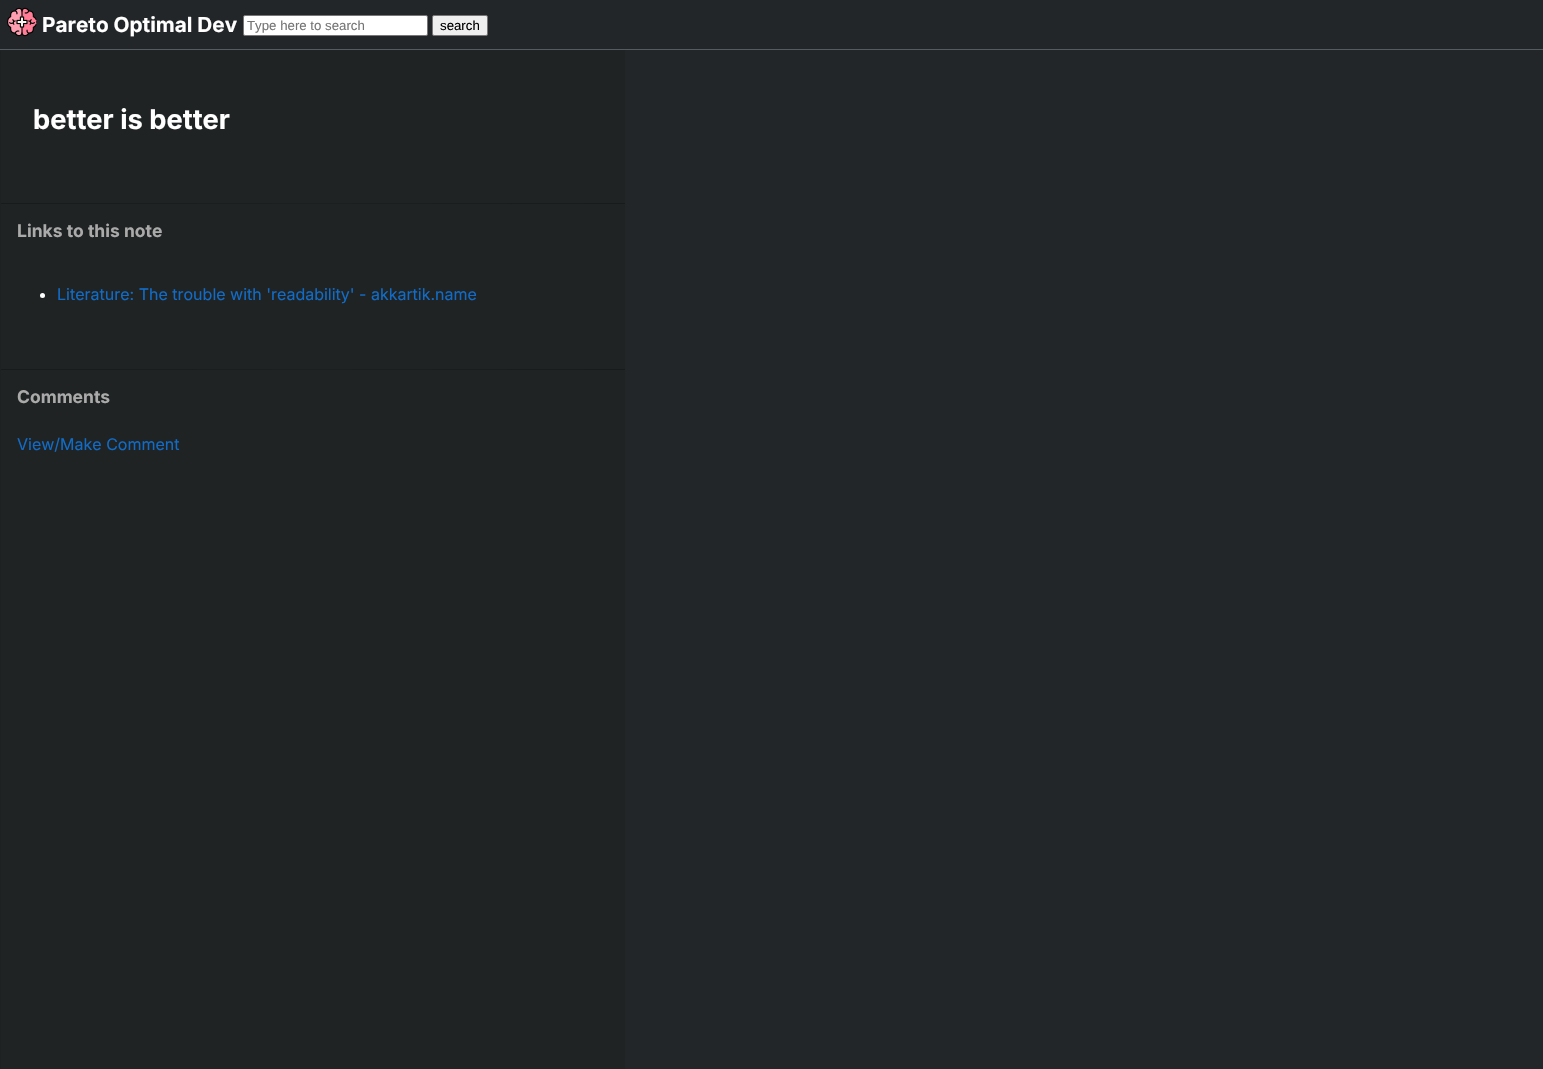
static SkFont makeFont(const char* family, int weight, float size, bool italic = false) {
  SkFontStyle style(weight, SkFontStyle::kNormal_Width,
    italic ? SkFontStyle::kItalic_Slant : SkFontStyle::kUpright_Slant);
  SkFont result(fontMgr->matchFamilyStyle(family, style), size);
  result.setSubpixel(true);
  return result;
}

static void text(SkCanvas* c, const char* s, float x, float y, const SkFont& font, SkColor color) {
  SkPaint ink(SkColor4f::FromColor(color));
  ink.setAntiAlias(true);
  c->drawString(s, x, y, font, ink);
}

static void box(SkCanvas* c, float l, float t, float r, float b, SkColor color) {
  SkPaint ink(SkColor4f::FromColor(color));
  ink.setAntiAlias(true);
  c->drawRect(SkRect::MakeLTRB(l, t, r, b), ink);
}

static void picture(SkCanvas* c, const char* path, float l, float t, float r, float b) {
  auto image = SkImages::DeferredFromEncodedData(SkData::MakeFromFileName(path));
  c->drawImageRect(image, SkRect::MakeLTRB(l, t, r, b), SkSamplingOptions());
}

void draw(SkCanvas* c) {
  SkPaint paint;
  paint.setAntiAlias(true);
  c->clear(0xff232629);
  box(c, 0, 49, 1543, 50, 0xff545c5f);
  picture(c, "img_01.png", 7, 7, 37, 37);
  SkFont face1 = makeFont("Inter", 700, 20.75f);
  text(c, "Pareto Optimal Dev", 42, 32, face1, 0xffffffff);
  paint.setColor(0xffffffff);
  c->drawRoundRect(SkRect::MakeLTRB(243.5f, 15.5f, 427.5f, 35.5f), 1.5f, 1.5f, paint);
  paint.setStyle(SkPaint::kStroke_Style);
  paint.setStrokeWidth(1);
  paint.setColor(0xff767676);
  c->drawRoundRect(SkRect::MakeLTRB(243.5f, 15.5f, 427.5f, 35.5f), 1.5f, 1.5f, paint);
  SkFont face2 = makeFont("Liberation Sans", 400, 13.25f);
  text(c, "Type here to search", 247, 30, face2, 0xff757575);
  paint.setStyle(SkPaint::kFill_Style);
  paint.setColor(0xffefefef);
  c->drawRoundRect(SkRect::MakeLTRB(432.5f, 15.5f, 487.5f, 35.5f), 1.5f, 1.5f, paint);
  paint.setStyle(SkPaint::kStroke_Style);
  paint.setColor(0xff767676);
  c->drawRoundRect(SkRect::MakeLTRB(432.5f, 15.5f, 487.5f, 35.5f), 1.5f, 1.5f, paint);
  text(c, "search", 440, 30, face2, 0xff000000);
  box(c, 1, 50, 625, 1069, 0xff202324);
  box(c, 0, 50, 1, 1069, 0xff1e2122);
  SkFont face3 = makeFont("Inter", 700, 27.25f);
  text(c, "better is better", 33, 129, face3, 0xffffffff);
  paint.setStyle(SkPaint::kFill_Style);
  {
    const SkColor colors[] = {0xff181a1b, 0xff1c1f20, 0xff181a1b};
    const float stops[] = {0, 0.5f, 1};
    const SkPoint ends[] = {{1, 204}, {625, 203}};
    paint.setShader(SkGradientShader::MakeLinear(ends, colors, stops, 3, SkTileMode::kClamp));
    paint.setAlpha(255);
  }
  c->drawRect(SkRect::MakeLTRB(1, 203, 625, 204), paint);
  SkFont face4 = makeFont("Inter", 700, 17.5f);
  text(c, "Links to this note", 17, 237, face4, 0xffaaaaaa);
  paint.setShader(nullptr);
  paint.setColor(0xffffffff);
  c->drawCircle(42.5f, 295.5f, 2.5f, paint);
  SkFont face5 = makeFont("Inter", 400, 16);
  text(c, "Literature: The trouble with 'readability' - akkartik.name", 57, 300, face5, 0xff106cc8);
  {
    const SkColor colors[] = {0xff181a1b, 0xff1c1f20, 0xff181a1b};
    const float stops[] = {0, 0.5f, 1};
    const SkPoint ends[] = {{1, 370}, {625, 370}};
    paint.setShader(SkGradientShader::MakeLinear(ends, colors, stops, 3, SkTileMode::kClamp));
    paint.setAlpha(255);
  }
  c->drawRect(SkRect::MakeLTRB(1, 369, 625, 370), paint);
  text(c, "Comments", 17, 403, face4, 0xffaaaaaa);
  text(c, "View/Make Comment", 17, 450, face5, 0xff106cc8);
}
